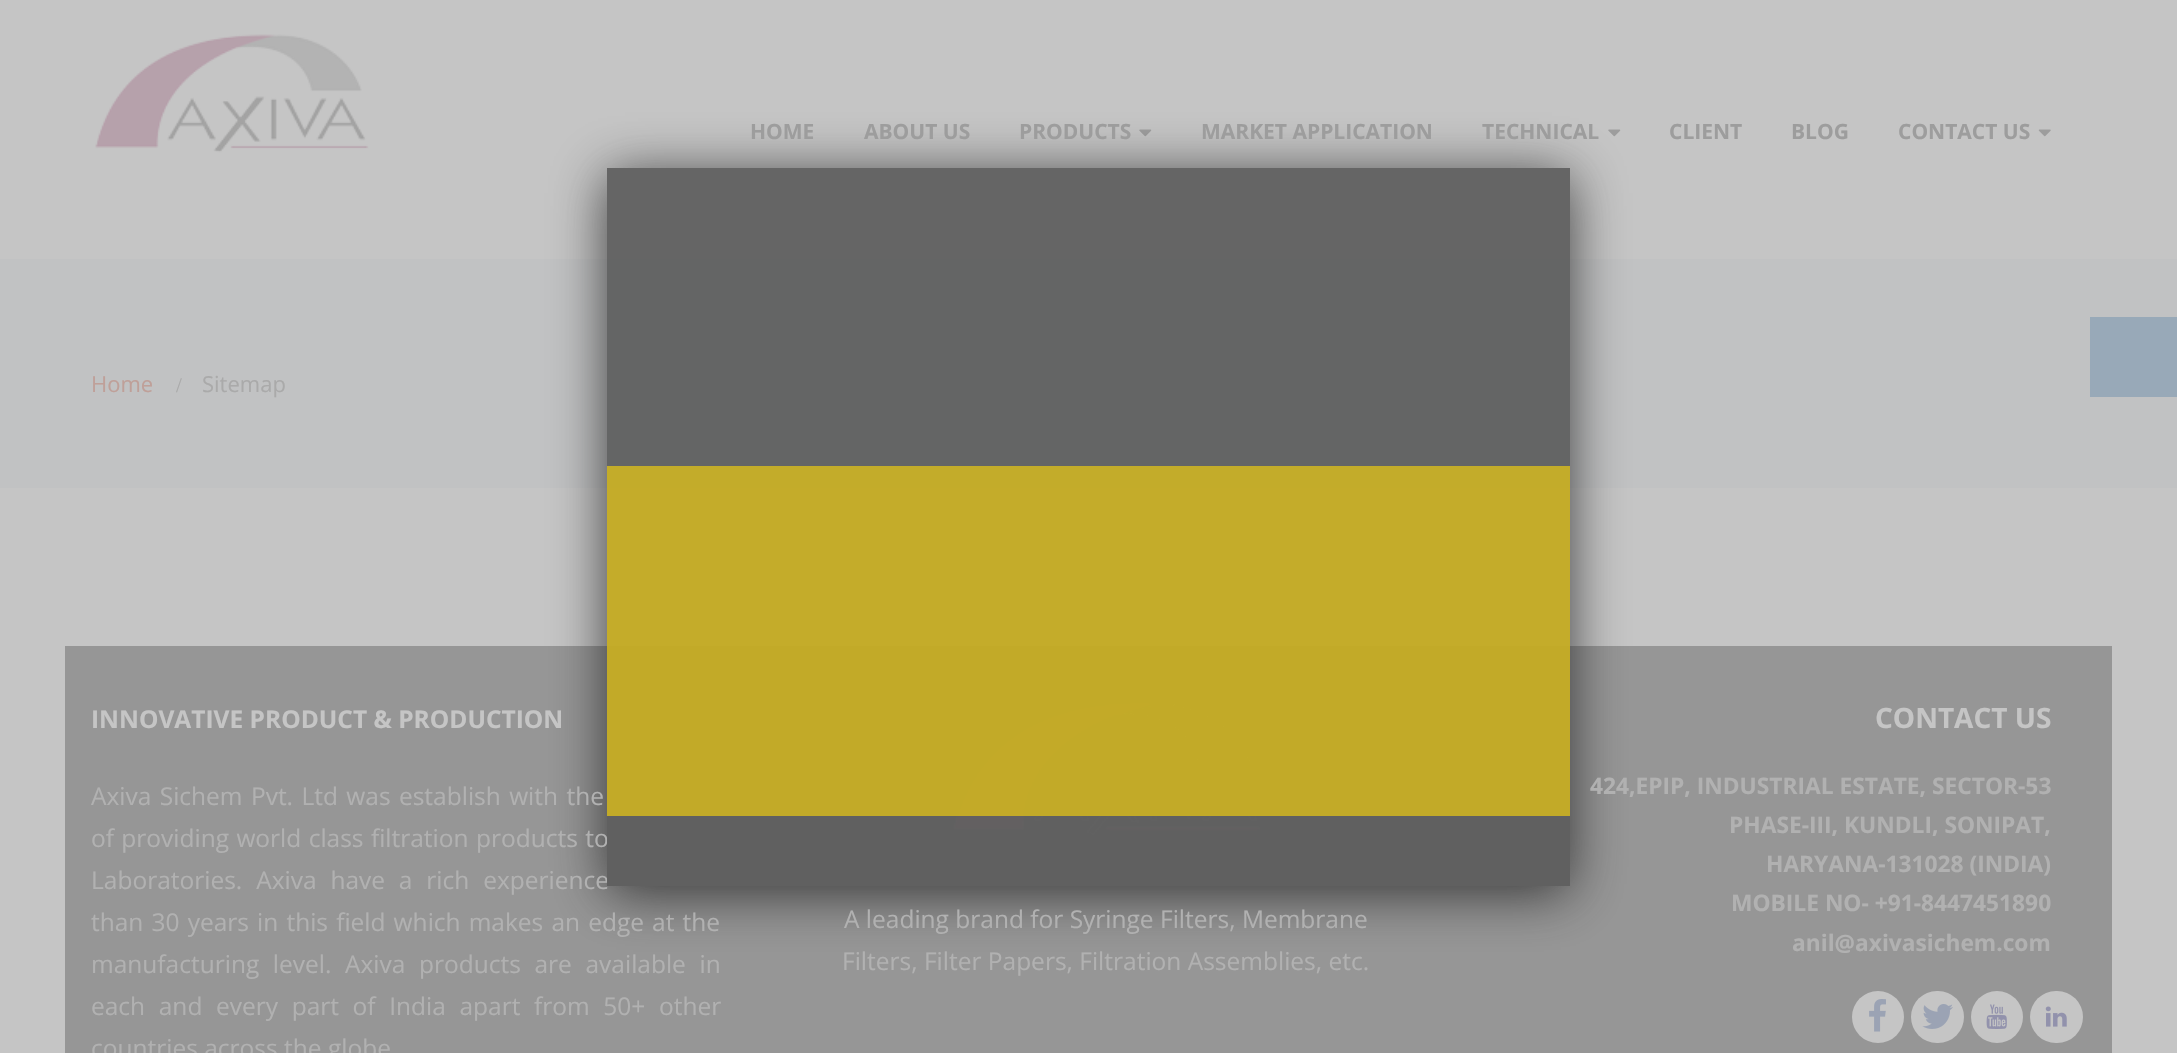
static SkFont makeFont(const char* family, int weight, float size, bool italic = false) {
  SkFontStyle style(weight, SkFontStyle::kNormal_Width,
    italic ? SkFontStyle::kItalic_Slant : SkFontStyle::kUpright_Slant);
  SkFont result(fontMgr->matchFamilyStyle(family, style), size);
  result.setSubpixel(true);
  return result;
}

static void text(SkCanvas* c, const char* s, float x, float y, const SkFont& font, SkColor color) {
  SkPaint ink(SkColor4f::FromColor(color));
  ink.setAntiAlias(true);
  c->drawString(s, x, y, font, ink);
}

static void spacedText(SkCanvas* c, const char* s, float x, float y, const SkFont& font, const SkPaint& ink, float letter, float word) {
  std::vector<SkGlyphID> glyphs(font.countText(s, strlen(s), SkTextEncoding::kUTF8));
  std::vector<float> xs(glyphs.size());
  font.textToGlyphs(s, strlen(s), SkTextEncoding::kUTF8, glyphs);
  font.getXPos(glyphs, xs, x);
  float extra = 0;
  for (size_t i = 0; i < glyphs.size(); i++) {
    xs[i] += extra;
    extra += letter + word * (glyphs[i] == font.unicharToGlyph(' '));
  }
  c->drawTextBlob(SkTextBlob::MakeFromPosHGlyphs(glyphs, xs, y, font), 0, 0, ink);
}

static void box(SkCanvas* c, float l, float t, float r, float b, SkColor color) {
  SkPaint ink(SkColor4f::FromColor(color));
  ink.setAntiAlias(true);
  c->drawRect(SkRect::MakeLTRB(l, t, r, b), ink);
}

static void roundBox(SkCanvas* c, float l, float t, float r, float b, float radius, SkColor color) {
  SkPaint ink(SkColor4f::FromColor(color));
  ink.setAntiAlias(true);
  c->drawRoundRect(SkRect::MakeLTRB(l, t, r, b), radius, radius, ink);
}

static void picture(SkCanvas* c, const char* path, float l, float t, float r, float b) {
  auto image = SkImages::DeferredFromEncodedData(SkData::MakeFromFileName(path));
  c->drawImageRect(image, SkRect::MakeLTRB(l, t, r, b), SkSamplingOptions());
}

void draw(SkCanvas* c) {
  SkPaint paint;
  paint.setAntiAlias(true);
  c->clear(0xffc5c5c5);
  picture(c, "img_02.png", 1139, 129, 1152, 137);
  picture(c, "img_02.png", 1608, 129, 1621, 137);
  box(c, 0, 259, 2177, 488, 0xffc1c2c3);
  box(c, 65, 646, 2112, 1053, 0xff969696);
  picture(c, "img_04.png", 953, 701, 1261, 836);
  c->save();
  c->clipPath(SkPathBuilder(SkPathFillType::kEvenOdd).moveTo(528, 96).lineTo(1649, 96).lineTo(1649, 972).lineTo(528, 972).close().moveTo(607, 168).lineTo(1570, 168).lineTo(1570, 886).lineTo(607, 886).close().detach(), true);
  paint.setColor(0xd4202020);
  paint.setMaskFilter(SkMaskFilter::MakeBlur(kNormal_SkBlurStyle, 26));
  c->drawRect(SkRect::MakeLTRB(607, 175, 1570, 893), paint);
  paint.setMaskFilter(nullptr);
  c->restore();
  SkFont face1 = makeFont("Open Sans", 400, 24.5f);
  paint.setColor(0xffb1b1b1);
  spacedText(c, "of providing world class filtration products to", 91, 847, face1, paint, 0, 1);
  spacedText(c, "Laboratories. Axiva have a rich experience", 91, 889, face1, paint, 0, 7.5f);
  box(c, 607, 168, 1570, 886, 0xbdffffff);
  box(c, 607, 168, 1570, 886, 0x94000000);
  box(c, 607, 466, 1570, 816, 0x9cffd804);
  picture(c, "img_01.png", 95, 34, 369, 153);
  SkFont face2 = makeFont("Open Sans", 700, 21);
  text(c, "HOME", 750, 139, face2, 0xff9d9d9d);
  text(c, "ABOUT US", 864, 139, face2, 0xff9d9d9d);
  text(c, "PRODUCTS", 1019, 139, face2, 0xff9d9d9d);
  text(c, "MARKET APPLICATION", 1201, 139, face2, 0xff9d9d9d);
  text(c, "TECHNICAL", 1482, 139, face2, 0xff9d9d9d);
  text(c, "CLIENT", 1669, 139, face2, 0xff9d9d9d);
  text(c, "BLOG", 1791, 139, face2, 0xff9d9d9d);
  text(c, "CONTACT US", 1898, 139, face2, 0xff9d9d9d);
  picture(c, "img_03.png", 2038, 129, 2051, 137);
  SkFont face3 = makeFont("Open Sans", 400, 22);
  text(c, "Home", 91, 392, face3, 0xffbfa099);
  SkFont face4 = makeFont("Liberation Serif", 400, 21);
  text(c, "/", 176, 392, face4, 0xffaaaaaa);
  text(c, "Sitemap", 202, 392, face3, 0xffaaaaaa);
  SkFont face5 = makeFont("Open Sans", 700, 24.5f);
  text(c, "INNOVATIVE PRODUCT & PRODUCTION", 91, 728, face5, 0xffc5c5c5);
  spacedText(c, "Axiva Sichem Pvt. Ltd was establish with the", 91, 805, face1, paint, 0, 2);
  spacedText(c, "than 30 years in this field which makes an edge at the", 91, 931, face1, paint, 0, 1.75f);
  spacedText(c, "manufacturing level. Axiva products are available in", 91, 973, face1, paint, 0, 7.25f);
  spacedText(c, "each and every part of India apart from 50+ other", 91, 1015, face1, paint, 0, 7.25f);
  text(c, "countries across the globe", 91, 1057, face1, 0xffb1b1b1);
  text(c, "A leading brand for Syringe Filters, Membrane", 844, 928, face1, 0xffb1b1b1);
  text(c, "Filters, Filter Papers, Filtration Assemblies, etc.", 842, 970, face1, 0xffb1b1b1);
  SkFont face6 = makeFont("Open Sans", 700, 28);
  text(c, "CONTACT US", 1875, 728, face6, 0xffc5c5c5);
  SkFont face7 = makeFont("Open Sans", 700, 22.75f);
  text(c, "424,EPIP, INDUSTRIAL ESTATE, SECTOR-53", 1590, 794, face7, 0xffb1b1b1);
  text(c, "PHASE-III, KUNDLI, SONIPAT,", 1729, 833, face7, 0xffb1b1b1);
  text(c, "HARYANA-131028 (INDIA)", 1766, 872, face7, 0xffb1b1b1);
  text(c, "MOBILE NO- +91-8447451890", 1731, 911, face7, 0xffb1b1b1);
  text(c, "anil@axivasichem.com", 1792, 951, face7, 0xffb1b1b1);
  paint.setColor(0xffc5c5c5);
  c->drawCircle(1878, 1017, 26, paint);
  picture(c, "img_05.png", 1869, 999, 1886, 1032);
  roundBox(c, 1911, 991, 1964, 1043, 26, 0xffc5c5c5);
  picture(c, "img_06.png", 1922, 1004, 1953, 1029);
  c->drawCircle(1997, 1017, 26, paint);
  picture(c, "img_07.png", 1986, 1004, 2007, 1029);
  roundBox(c, 2030, 991, 2083, 1043, 26, 0xffc5c5c5);
  picture(c, "img_08.png", 2045, 1006, 2067, 1027);
  box(c, 2090, 317, 2177, 397, 0xff98a9b8);
}
